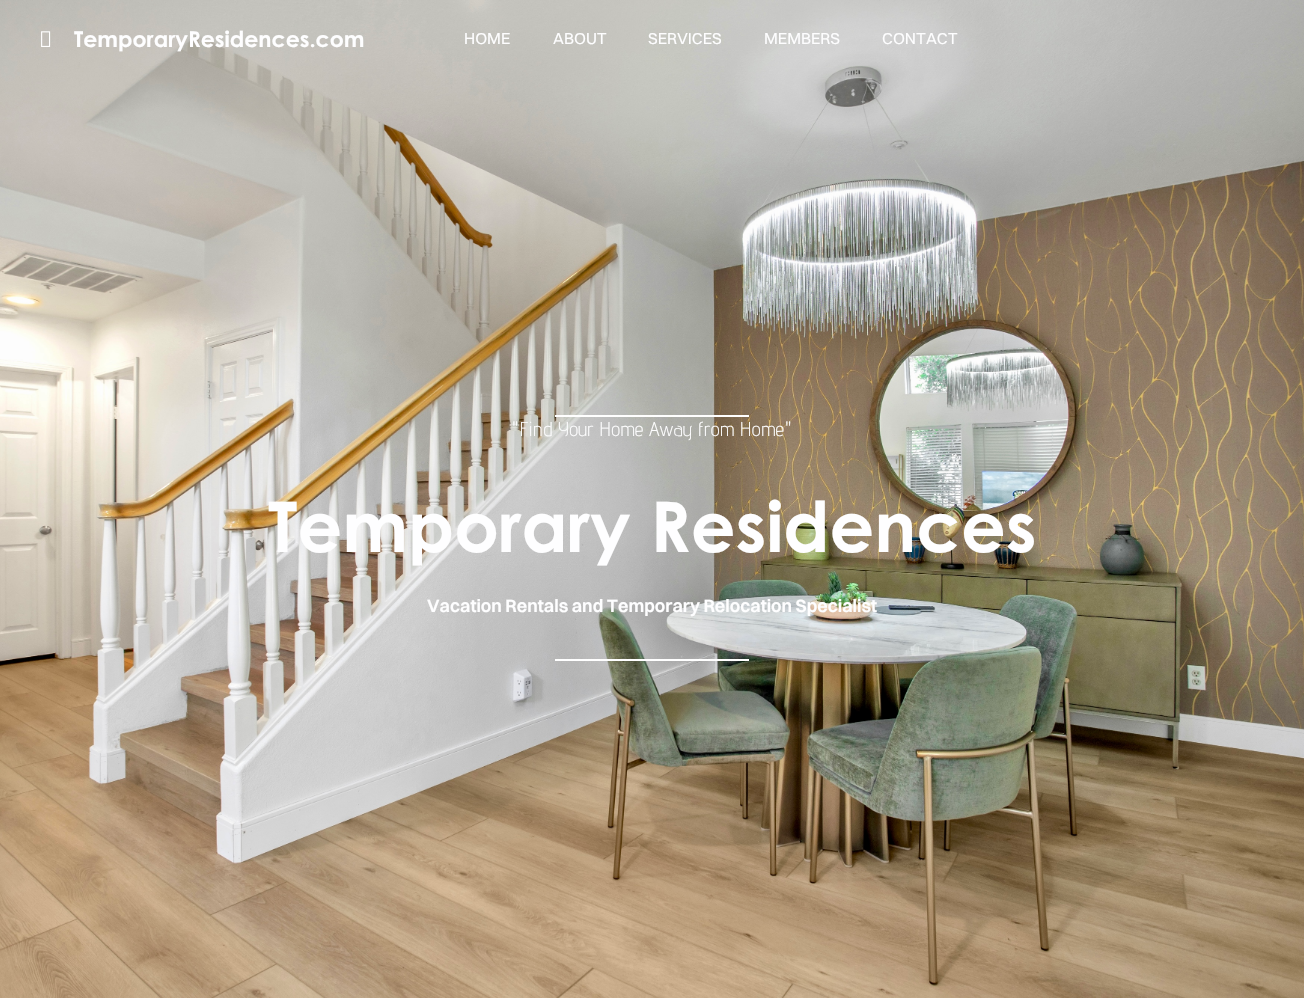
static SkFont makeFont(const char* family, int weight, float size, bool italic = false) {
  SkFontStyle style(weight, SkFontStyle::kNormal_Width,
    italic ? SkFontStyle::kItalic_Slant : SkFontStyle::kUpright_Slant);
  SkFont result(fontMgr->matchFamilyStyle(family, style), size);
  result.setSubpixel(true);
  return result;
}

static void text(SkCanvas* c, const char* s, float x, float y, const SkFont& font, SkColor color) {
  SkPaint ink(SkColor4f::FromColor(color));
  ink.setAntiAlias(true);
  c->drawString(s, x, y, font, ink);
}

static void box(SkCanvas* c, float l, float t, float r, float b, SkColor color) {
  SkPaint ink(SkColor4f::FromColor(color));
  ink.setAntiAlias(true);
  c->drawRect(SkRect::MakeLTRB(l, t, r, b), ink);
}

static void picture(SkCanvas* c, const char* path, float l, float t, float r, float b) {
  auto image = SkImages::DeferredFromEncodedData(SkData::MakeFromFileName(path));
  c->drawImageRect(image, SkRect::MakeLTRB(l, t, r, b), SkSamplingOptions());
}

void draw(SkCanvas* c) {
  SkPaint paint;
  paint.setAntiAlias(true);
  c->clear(0xffffffff);
  picture(c, "img_01.png", 0, 0, 1304, 998);
  picture(c, "img_02.png", 41, 31, 51, 47);
  SkFont face1 = makeFont("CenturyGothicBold", 700, 22);
  text(c, "TemporaryResidences.com", 74, 47, face1, 0xfffefeff);
  SkFont face2 = makeFont("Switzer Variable", 400, 16);
  text(c, "HOME", 464, 44, face2, 0xfffefeff);
  text(c, "ABOUT", 553, 44, face2, 0xfffefeff);
  text(c, "SERVICES", 648, 44, face2, 0xfffefeff);
  text(c, "MEMBERS", 764, 44, face2, 0xfffefeff);
  text(c, "CONTACT", 882, 44, face2, 0xfffefeff);
  box(c, 555, 415, 749, 417, 0xffffffff);
  SkFont face3 = makeFont("Advent Pro", 300, 20);
  text(c, "\"Find Your Home Away from Home\"", 511, 436, face3, 0xfffefeff);
  SkFont face4 = makeFont("CenturyGothicBold", 700, 70);
  text(c, "Temporary Residences", 268, 552, face4, 0xfffefeff);
  SkFont face5 = makeFont("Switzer", 600, 18);
  text(c, "Vacation Rentals and Temporary Relocation Specialist", 427, 612, face5, 0xfffefeff);
  box(c, 555, 659, 749, 661, 0xffffffff);
}
